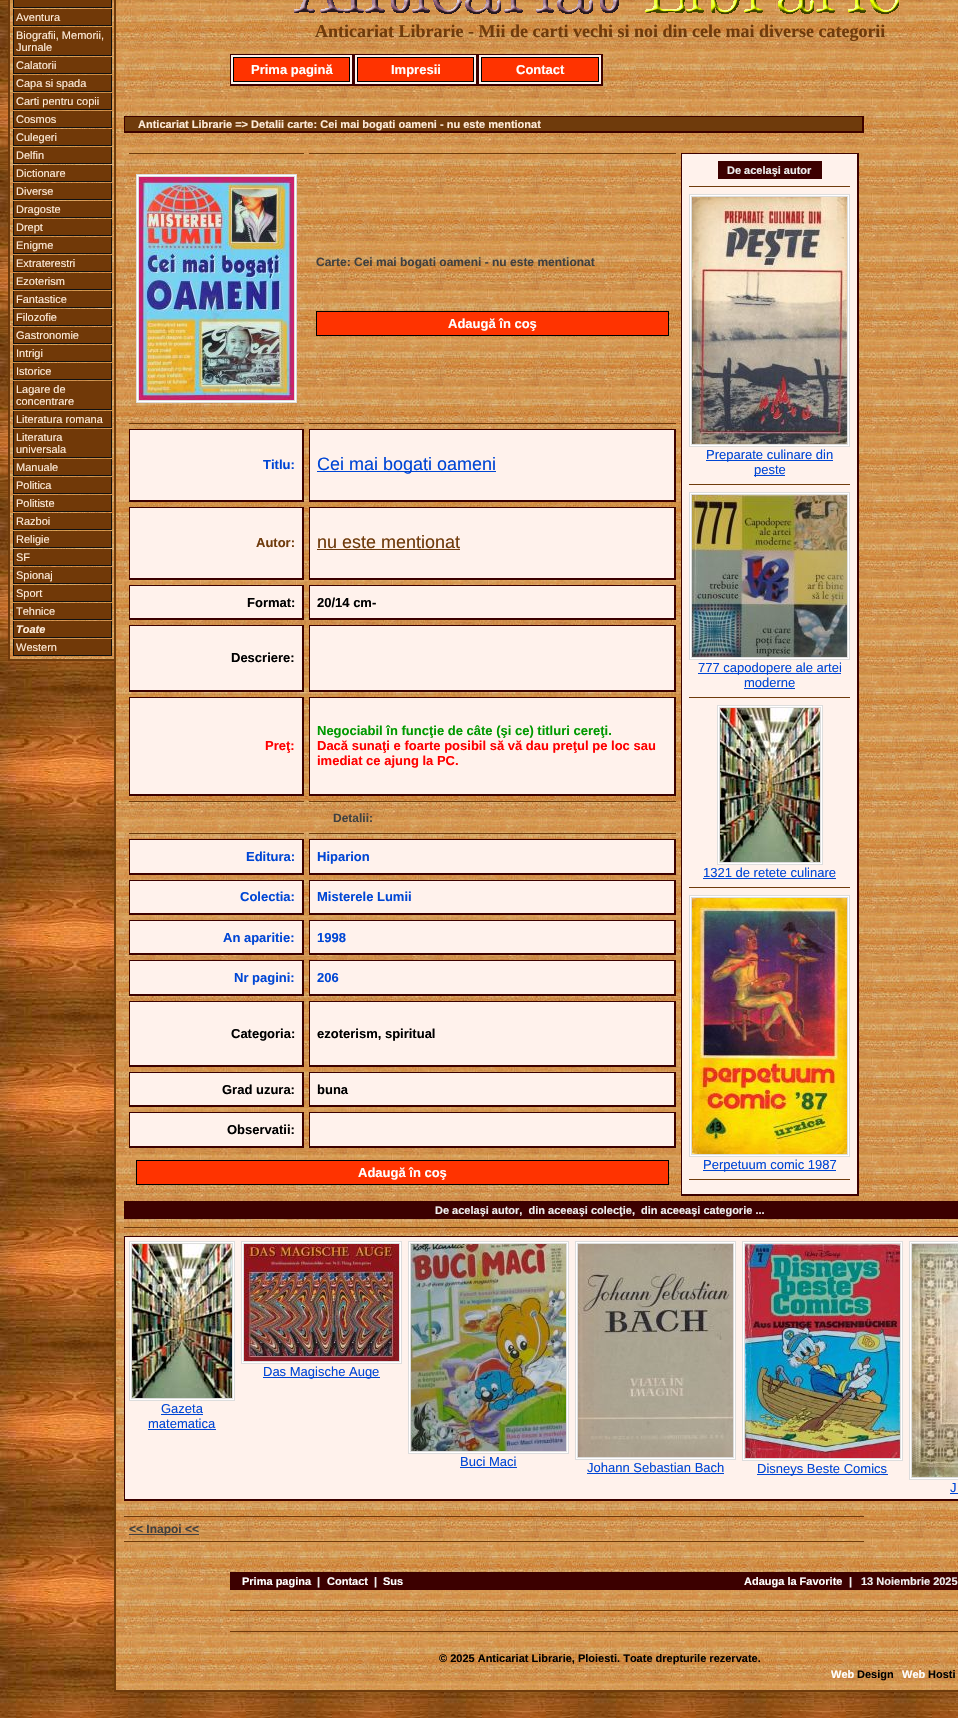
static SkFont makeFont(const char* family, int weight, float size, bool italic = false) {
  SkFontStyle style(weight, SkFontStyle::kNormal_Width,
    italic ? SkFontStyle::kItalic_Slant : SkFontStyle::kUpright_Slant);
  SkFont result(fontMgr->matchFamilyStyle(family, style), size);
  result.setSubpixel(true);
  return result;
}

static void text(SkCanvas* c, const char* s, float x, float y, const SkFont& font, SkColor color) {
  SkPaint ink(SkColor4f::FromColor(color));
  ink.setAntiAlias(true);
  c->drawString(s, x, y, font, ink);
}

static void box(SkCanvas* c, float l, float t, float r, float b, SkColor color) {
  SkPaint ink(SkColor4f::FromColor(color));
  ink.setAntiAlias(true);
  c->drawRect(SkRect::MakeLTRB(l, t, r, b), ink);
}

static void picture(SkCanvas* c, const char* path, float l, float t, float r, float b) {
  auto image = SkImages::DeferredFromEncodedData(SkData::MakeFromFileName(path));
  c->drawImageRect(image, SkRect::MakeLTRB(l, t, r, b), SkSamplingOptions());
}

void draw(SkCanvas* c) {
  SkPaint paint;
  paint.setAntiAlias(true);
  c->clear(0xffffffff);
  picture(c, "img_01.png", 0, 0, 958, 1718);
  picture(c, "img_02.png", 10, 0, 114, 659);
  box(c, 8, 659, 114, 661, 0xff6f3b0c);
  box(c, 8, 0, 10, 661, 0xff6f3b0c);
  box(c, 13, 0, 112, 7, 0xff713908);
  box(c, 111, 0, 112, 8, 0xff101010);
  box(c, 13, 7, 112, 8, 0xff101010);
  box(c, 13, 0, 14, 8, 0xff101010);
  box(c, 14, 9, 111, 25, 0xff713908);
  box(c, 111, 9, 112, 26, 0xff101010);
  box(c, 13, 25, 112, 26, 0xff101010);
  box(c, 13, 9, 14, 26, 0xff101010);
  SkFont face1 = makeFont("Liberation Sans", 400, 11);
  text(c, "Aventura", 16, 21, face1, 0xffffecd9);
  box(c, 14, 27, 111, 55, 0xff713908);
  box(c, 111, 27, 112, 56, 0xff101010);
  box(c, 13, 55, 112, 56, 0xff101010);
  box(c, 13, 27, 14, 56, 0xff101010);
  text(c, "Biografii, Memorii,", 16, 39, face1, 0xffffecd9);
  text(c, "Jurnale", 16, 51, face1, 0xffffecd9);
  box(c, 14, 57, 111, 73, 0xff713908);
  box(c, 111, 57, 112, 74, 0xff101010);
  box(c, 13, 73, 112, 74, 0xff101010);
  box(c, 13, 57, 14, 74, 0xff101010);
  text(c, "Calatorii", 16, 69, face1, 0xffffecd9);
  box(c, 14, 75, 111, 91, 0xff713908);
  box(c, 111, 75, 112, 92, 0xff101010);
  box(c, 13, 91, 112, 92, 0xff101010);
  box(c, 13, 75, 14, 92, 0xff101010);
  text(c, "Capa si spada", 16, 87, face1, 0xffffecd9);
  box(c, 14, 93, 111, 109, 0xff713908);
  box(c, 111, 93, 112, 110, 0xff101010);
  box(c, 13, 109, 112, 110, 0xff101010);
  box(c, 13, 93, 14, 110, 0xff101010);
  text(c, "Carti pentru copii", 16, 105, face1, 0xffffecd9);
  box(c, 14, 111, 111, 127, 0xff713908);
  box(c, 111, 111, 112, 128, 0xff101010);
  box(c, 13, 127, 112, 128, 0xff101010);
  box(c, 13, 111, 14, 128, 0xff101010);
  text(c, "Cosmos", 16, 123, face1, 0xffffecd9);
  box(c, 14, 129, 111, 145, 0xff713908);
  box(c, 111, 129, 112, 146, 0xff101010);
  box(c, 13, 145, 112, 146, 0xff101010);
  box(c, 13, 129, 14, 146, 0xff101010);
  text(c, "Culegeri", 16, 141, face1, 0xffffecd9);
  box(c, 14, 147, 111, 163, 0xff713908);
  box(c, 111, 147, 112, 164, 0xff101010);
  box(c, 13, 163, 112, 164, 0xff101010);
  box(c, 13, 147, 14, 164, 0xff101010);
  text(c, "Delfin", 16, 159, face1, 0xffffecd9);
  box(c, 14, 165, 111, 181, 0xff713908);
  box(c, 111, 165, 112, 182, 0xff101010);
  box(c, 13, 181, 112, 182, 0xff101010);
  box(c, 13, 165, 14, 182, 0xff101010);
  text(c, "Dictionare", 16, 177, face1, 0xffffecd9);
  box(c, 14, 183, 111, 199, 0xff713908);
  box(c, 111, 183, 112, 200, 0xff101010);
  box(c, 13, 199, 112, 200, 0xff101010);
  box(c, 13, 183, 14, 200, 0xff101010);
  text(c, "Diverse", 16, 195, face1, 0xffffecd9);
  box(c, 14, 201, 111, 217, 0xff713908);
  box(c, 111, 201, 112, 218, 0xff101010);
  box(c, 13, 217, 112, 218, 0xff101010);
  box(c, 13, 201, 14, 218, 0xff101010);
  text(c, "Dragoste", 16, 213, face1, 0xffffecd9);
  box(c, 14, 219, 111, 235, 0xff713908);
  box(c, 111, 219, 112, 236, 0xff101010);
  box(c, 13, 235, 112, 236, 0xff101010);
  box(c, 13, 219, 14, 236, 0xff101010);
  text(c, "Drept", 16, 231, face1, 0xffffecd9);
  box(c, 14, 237, 111, 253, 0xff713908);
  box(c, 111, 237, 112, 254, 0xff101010);
  box(c, 13, 253, 112, 254, 0xff101010);
  box(c, 13, 237, 14, 254, 0xff101010);
  text(c, "Enigme", 16, 249, face1, 0xffffecd9);
  box(c, 14, 255, 111, 271, 0xff713908);
  box(c, 111, 255, 112, 272, 0xff101010);
  box(c, 13, 271, 112, 272, 0xff101010);
  box(c, 13, 255, 14, 272, 0xff101010);
  text(c, "Extraterestri", 16, 267, face1, 0xffffecd9);
  box(c, 14, 273, 111, 289, 0xff713908);
  box(c, 111, 273, 112, 290, 0xff101010);
  box(c, 13, 289, 112, 290, 0xff101010);
  box(c, 13, 273, 14, 290, 0xff101010);
  text(c, "Ezoterism", 16, 285, face1, 0xffffecd9);
  box(c, 14, 291, 111, 307, 0xff713908);
  box(c, 111, 291, 112, 308, 0xff101010);
  box(c, 13, 307, 112, 308, 0xff101010);
  box(c, 13, 291, 14, 308, 0xff101010);
  text(c, "Fantastice", 16, 303, face1, 0xffffecd9);
  box(c, 14, 309, 111, 325, 0xff713908);
  box(c, 111, 309, 112, 326, 0xff101010);
  box(c, 13, 325, 112, 326, 0xff101010);
  box(c, 13, 309, 14, 326, 0xff101010);
  text(c, "Filozofie", 16, 321, face1, 0xffffecd9);
  box(c, 14, 327, 111, 343, 0xff713908);
  box(c, 111, 327, 112, 344, 0xff101010);
  box(c, 13, 343, 112, 344, 0xff101010);
  box(c, 13, 327, 14, 344, 0xff101010);
  text(c, "Gastronomie", 16, 339, face1, 0xffffecd9);
  box(c, 14, 345, 111, 361, 0xff713908);
  box(c, 111, 345, 112, 362, 0xff101010);
  box(c, 13, 361, 112, 362, 0xff101010);
  box(c, 13, 345, 14, 362, 0xff101010);
  text(c, "Intrigi", 16, 357, face1, 0xffffecd9);
  box(c, 14, 363, 111, 379, 0xff713908);
  box(c, 111, 363, 112, 380, 0xff101010);
  box(c, 13, 379, 112, 380, 0xff101010);
  box(c, 13, 363, 14, 380, 0xff101010);
  text(c, "Istorice", 16, 375, face1, 0xffffecd9);
  box(c, 14, 381, 111, 409, 0xff713908);
  box(c, 111, 381, 112, 410, 0xff101010);
  box(c, 13, 409, 112, 410, 0xff101010);
  box(c, 13, 381, 14, 410, 0xff101010);
  text(c, "Lagare de", 16, 393, face1, 0xffffecd9);
  text(c, "concentrare", 16, 405, face1, 0xffffecd9);
  box(c, 14, 411, 111, 427, 0xff713908);
  box(c, 111, 411, 112, 428, 0xff101010);
  box(c, 13, 427, 112, 428, 0xff101010);
  box(c, 13, 411, 14, 428, 0xff101010);
  text(c, "Literatura romana", 16, 423, face1, 0xffffecd9);
  box(c, 14, 429, 111, 457, 0xff713908);
  box(c, 111, 429, 112, 458, 0xff101010);
  box(c, 13, 457, 112, 458, 0xff101010);
  box(c, 13, 429, 14, 458, 0xff101010);
  text(c, "Literatura", 16, 441, face1, 0xffffecd9);
  text(c, "universala", 16, 453, face1, 0xffffecd9);
  box(c, 14, 459, 111, 475, 0xff713908);
  box(c, 111, 459, 112, 476, 0xff101010);
  box(c, 13, 475, 112, 476, 0xff101010);
  box(c, 13, 459, 14, 476, 0xff101010);
  text(c, "Manuale", 16, 471, face1, 0xffffecd9);
  box(c, 14, 477, 111, 493, 0xff713908);
  box(c, 111, 477, 112, 494, 0xff101010);
  box(c, 13, 493, 112, 494, 0xff101010);
  box(c, 13, 477, 14, 494, 0xff101010);
  text(c, "Politica", 16, 489, face1, 0xffffecd9);
  box(c, 14, 495, 111, 511, 0xff713908);
  box(c, 111, 495, 112, 512, 0xff101010);
  box(c, 13, 511, 112, 512, 0xff101010);
  box(c, 13, 495, 14, 512, 0xff101010);
  text(c, "Politiste", 16, 507, face1, 0xffffecd9);
  box(c, 14, 513, 111, 529, 0xff713908);
  box(c, 111, 513, 112, 530, 0xff101010);
  box(c, 13, 529, 112, 530, 0xff101010);
  box(c, 13, 513, 14, 530, 0xff101010);
  text(c, "Razboi", 16, 525, face1, 0xffffecd9);
  box(c, 14, 531, 111, 547, 0xff713908);
  box(c, 111, 531, 112, 548, 0xff101010);
  box(c, 13, 547, 112, 548, 0xff101010);
  box(c, 13, 531, 14, 548, 0xff101010);
  text(c, "Religie", 16, 543, face1, 0xffffecd9);
  box(c, 14, 549, 111, 565, 0xff713908);
  box(c, 111, 549, 112, 566, 0xff101010);
  box(c, 13, 565, 112, 566, 0xff101010);
  box(c, 13, 549, 14, 566, 0xff101010);
  text(c, "SF", 16, 561, face1, 0xffffecd9);
  box(c, 14, 567, 111, 583, 0xff713908);
  box(c, 111, 567, 112, 584, 0xff101010);
  box(c, 13, 583, 112, 584, 0xff101010);
  box(c, 13, 567, 14, 584, 0xff101010);
  text(c, "Spionaj", 16, 579, face1, 0xffffecd9);
  box(c, 14, 585, 111, 601, 0xff713908);
  box(c, 111, 585, 112, 602, 0xff101010);
  box(c, 13, 601, 112, 602, 0xff101010);
  box(c, 13, 585, 14, 602, 0xff101010);
  text(c, "Sport", 16, 597, face1, 0xffffecd9);
  box(c, 14, 603, 111, 619, 0xff713908);
  box(c, 111, 603, 112, 620, 0xff101010);
  box(c, 13, 619, 112, 620, 0xff101010);
  box(c, 13, 603, 14, 620, 0xff101010);
  text(c, "Tehnice", 16, 615, face1, 0xffffecd9);
  box(c, 14, 621, 111, 637, 0xff713908);
  box(c, 111, 621, 112, 638, 0xff101010);
  box(c, 13, 637, 112, 638, 0xff101010);
  box(c, 13, 621, 14, 638, 0xff101010);
  SkFont face2 = makeFont("Liberation Sans", 700, 11, true);
  text(c, "Toate", 16, 633, face2, 0xffffecd9);
  box(c, 14, 639, 111, 655, 0xff713908);
  box(c, 111, 639, 112, 656, 0xff101010);
  box(c, 13, 655, 112, 656, 0xff101010);
  box(c, 13, 639, 14, 656, 0xff101010);
  text(c, "Western", 16, 651, face1, 0xffffecd9);
  picture(c, "img_03.png", 116, 0, 958, 1690);
  paint.setStyle(SkPaint::kStroke_Style);
  paint.setStrokeWidth(2);
  paint.setColor(0xff6f3b0c);
  c->drawRect(SkRect::MakeLTRB(115, -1, 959, 1691), paint);
  picture(c, "img_04.png", 294, 0, 899, 14);
  SkFont face3 = makeFont("Liberation Serif", 700, 18);
  text(c, "Anticariat Librarie - Mii de carti vechi si noi din cele mai diverse categorii", 315, 37, face3, 0xff6f3b0c);
  box(c, 231, 55, 352, 84, 0xfffff2ec);
  box(c, 230, 54, 603, 55, 0xff3c0000);
  box(c, 352, 54, 354, 86, 0xff3c0000);
  box(c, 230, 84, 354, 86, 0xff3c0000);
  box(c, 230, 54, 231, 86, 0xff3c0000);
  paint.setStyle(SkPaint::kFill_Style);
  paint.setColor(0xffff3300);
  c->drawRect(SkRect::MakeLTRB(233.5f, 57.5f, 349.5f, 81.5f), paint);
  paint.setStyle(SkPaint::kStroke_Style);
  paint.setStrokeWidth(1);
  paint.setColor(0xff000000);
  c->drawRect(SkRect::MakeLTRB(233.5f, 57.5f, 349.5f, 81.5f), paint);
  SkFont face4 = makeFont("Liberation Sans", 700, 13);
  text(c, "Prima pagină", 251, 74, face4, 0xffffffff);
  box(c, 355, 55, 476, 84, 0xfffff2ec);
  box(c, 476, 54, 478, 86, 0xff3c0000);
  box(c, 354, 84, 478, 86, 0xff3c0000);
  box(c, 354, 54, 355, 86, 0xff3c0000);
  paint.setStyle(SkPaint::kFill_Style);
  paint.setColor(0xffff3300);
  c->drawRect(SkRect::MakeLTRB(357.5f, 57.5f, 473.5f, 81.5f), paint);
  paint.setStyle(SkPaint::kStroke_Style);
  paint.setColor(0xff000000);
  c->drawRect(SkRect::MakeLTRB(357.5f, 57.5f, 473.5f, 81.5f), paint);
  text(c, "Impresii", 391, 74, face4, 0xffffffff);
  box(c, 479, 55, 601, 84, 0xfffff2ec);
  box(c, 601, 54, 603, 86, 0xff3c0000);
  box(c, 478, 84, 603, 86, 0xff3c0000);
  box(c, 478, 54, 479, 86, 0xff3c0000);
  paint.setStyle(SkPaint::kFill_Style);
  paint.setColor(0xffff3300);
  c->drawRect(SkRect::MakeLTRB(481.5f, 57.5f, 598.5f, 81.5f), paint);
  paint.setStyle(SkPaint::kStroke_Style);
  paint.setColor(0xff000000);
  c->drawRect(SkRect::MakeLTRB(481.5f, 57.5f, 598.5f, 81.5f), paint);
  text(c, "Contact", 516, 74, face4, 0xffffffff);
  box(c, 125, 117, 862, 131, 0xff6f3b0c);
  box(c, 124, 116, 864, 117, 0xff3c0000);
  box(c, 862, 116, 864, 133, 0xff3c0000);
  box(c, 124, 131, 864, 133, 0xff3c0000);
  box(c, 124, 116, 125, 133, 0xff3c0000);
  SkFont face5 = makeFont("Liberation Sans", 700, 11);
  text(c, "Anticariat Librarie => Detalii carte: Cei mai bogati oameni - nu este mentionat", 138, 128, face5, 0xffffecd9);
  box(c, 129, 153, 304, 154, 0xff6f3b0c);
  box(c, 129, 423, 304, 424, 0xff6f3b0c);
  paint.setStyle(SkPaint::kFill_Style);
  paint.setColor(0xffffffff);
  c->drawRect(SkRect::MakeLTRB(136.5f, 174.5f, 296.5f, 402.5f), paint);
  paint.setStyle(SkPaint::kStroke_Style);
  paint.setColor(0xffdddddd);
  c->drawRect(SkRect::MakeLTRB(136.5f, 174.5f, 296.5f, 402.5f), paint);
  c->drawRect(SkRect::MakeLTRB(138.5f, 176.5f, 294.5f, 400.5f), paint);
  picture(c, "img_05.png", 139, 177, 294, 400);
  box(c, 309, 153, 676, 154, 0xff6f3b0c);
  box(c, 309, 423, 676, 424, 0xff6f3b0c);
  SkFont face6 = makeFont("Liberation Sans", 700, 12);
  text(c, "Carte: Cei mai bogati oameni - nu este mentionat", 316, 266, face6, 0xff404040);
  paint.setStyle(SkPaint::kFill_Style);
  paint.setColor(0xffff3300);
  c->drawRect(SkRect::MakeLTRB(316.5f, 311.5f, 668.5f, 335.5f), paint);
  paint.setStyle(SkPaint::kStroke_Style);
  paint.setColor(0xff000000);
  c->drawRect(SkRect::MakeLTRB(316.5f, 311.5f, 668.5f, 335.5f), paint);
  text(c, "Adaugă în coş", 448, 328, face4, 0xffffffff);
  box(c, 682, 154, 857, 1194, 0xfffff2ec);
  box(c, 681, 153, 859, 154, 0xff3c0000);
  box(c, 857, 153, 859, 1196, 0xff3c0000);
  box(c, 681, 1194, 859, 1196, 0xff3c0000);
  box(c, 681, 153, 682, 1196, 0xff3c0000);
  box(c, 718, 161, 822, 179, 0xff3c0000);
  text(c, "De acelaşi autor", 727, 174, face5, 0xffefefef);
  box(c, 689, 186, 850, 187, 0xff6f3b0c);
  paint.setStyle(SkPaint::kFill_Style);
  paint.setColor(0xffffffff);
  c->drawRect(SkRect::MakeLTRB(689.5f, 194.5f, 849.5f, 446.5f), paint);
  paint.setStyle(SkPaint::kStroke_Style);
  paint.setColor(0xffdddddd);
  c->drawRect(SkRect::MakeLTRB(689.5f, 194.5f, 849.5f, 446.5f), paint);
  c->drawRect(SkRect::MakeLTRB(691.5f, 196.5f, 847.5f, 444.5f), paint);
  picture(c, "img_06.png", 692, 197, 847, 444);
  box(c, 706, 460, 833, 461, 0xff0046d5);
  SkFont face7 = makeFont("Liberation Sans", 400, 13);
  text(c, "Preparate culinare din", 706, 459, face7, 0xff0046d5);
  box(c, 754, 475, 785, 476, 0xff0046d5);
  text(c, "peste", 754, 474, face7, 0xff0046d5);
  box(c, 689, 484, 850, 485, 0xff6f3b0c);
  paint.setStyle(SkPaint::kFill_Style);
  paint.setColor(0xffffffff);
  c->drawRect(SkRect::MakeLTRB(689.5f, 492.5f, 849.5f, 659.5f), paint);
  paint.setStyle(SkPaint::kStroke_Style);
  paint.setColor(0xffdddddd);
  c->drawRect(SkRect::MakeLTRB(689.5f, 492.5f, 849.5f, 659.5f), paint);
  c->drawRect(SkRect::MakeLTRB(691.5f, 494.5f, 847.5f, 657.5f), paint);
  picture(c, "img_07.png", 692, 495, 847, 657);
  box(c, 698, 673, 841, 674, 0xff0046d5);
  text(c, "777 capodopere ale artei", 698, 672, face7, 0xff0046d5);
  text(c, "moderne", 744, 687, face7, 0xff0046d5);
  box(c, 744, 688, 795, 689, 0xff0046d5);
  box(c, 689, 697, 850, 698, 0xff6f3b0c);
  paint.setStyle(SkPaint::kFill_Style);
  paint.setColor(0xffffffff);
  c->drawRect(SkRect::MakeLTRB(717.5f, 705.5f, 822.5f, 864.5f), paint);
  paint.setStyle(SkPaint::kStroke_Style);
  paint.setColor(0xffdddddd);
  c->drawRect(SkRect::MakeLTRB(717.5f, 705.5f, 822.5f, 864.5f), paint);
  c->drawRect(SkRect::MakeLTRB(719.5f, 707.5f, 820.5f, 862.5f), paint);
  picture(c, "img_08.png", 720, 708, 820, 862);
  text(c, "1321 de retete culinare", 703, 877, face7, 0xff0046d5);
  box(c, 703, 878, 836, 879, 0xff0046d5);
  box(c, 689, 887, 850, 888, 0xff6f3b0c);
  paint.setStyle(SkPaint::kFill_Style);
  paint.setColor(0xffffffff);
  c->drawRect(SkRect::MakeLTRB(689.5f, 895.5f, 849.5f, 1156.5f), paint);
  paint.setStyle(SkPaint::kStroke_Style);
  paint.setColor(0xffdddddd);
  c->drawRect(SkRect::MakeLTRB(689.5f, 895.5f, 849.5f, 1156.5f), paint);
  c->drawRect(SkRect::MakeLTRB(691.5f, 897.5f, 847.5f, 1154.5f), paint);
  picture(c, "img_09.png", 692, 898, 847, 1154);
  box(c, 703, 1170, 836, 1171, 0xff0046d5);
  text(c, "Perpetuum comic 1987", 703, 1169, face7, 0xff0046d5);
  box(c, 689, 1179, 850, 1180, 0xff6f3b0c);
  box(c, 130, 430, 302, 500, 0xfffff2ec);
  box(c, 129, 429, 304, 430, 0xff3c0000);
  box(c, 302, 429, 304, 502, 0xff3c0000);
  box(c, 129, 500, 304, 502, 0xff3c0000);
  box(c, 129, 429, 130, 502, 0xff3c0000);
  text(c, "Titlu:", 263, 469, face4, 0xff0046d5);
  box(c, 310, 430, 674, 500, 0xfffff2ec);
  box(c, 309, 429, 676, 430, 0xff3c0000);
  box(c, 674, 429, 676, 502, 0xff3c0000);
  box(c, 309, 500, 676, 502, 0xff3c0000);
  box(c, 309, 429, 310, 502, 0xff3c0000);
  box(c, 317, 471, 496, 472, 0xff0046d5);
  SkFont face8 = makeFont("Liberation Sans", 400, 18);
  text(c, "Cei mai bogati oameni", 317, 470, face8, 0xff0046d5);
  box(c, 130, 508, 302, 578, 0xfffff2ec);
  box(c, 129, 507, 304, 508, 0xff3c0000);
  box(c, 302, 507, 304, 580, 0xff3c0000);
  box(c, 129, 578, 304, 580, 0xff3c0000);
  box(c, 129, 507, 130, 580, 0xff3c0000);
  text(c, "Autor:", 256, 547, face4, 0xff6f3b0c);
  box(c, 310, 508, 674, 578, 0xfffff2ec);
  box(c, 309, 507, 676, 508, 0xff3c0000);
  box(c, 674, 507, 676, 580, 0xff3c0000);
  box(c, 309, 578, 676, 580, 0xff3c0000);
  box(c, 309, 507, 310, 580, 0xff3c0000);
  text(c, "nu este mentionat", 317, 548, face8, 0xff6f3b0c);
  box(c, 317, 549, 460, 550, 0xff6f3b0c);
  box(c, 130, 586, 302, 618, 0xfffff2ec);
  box(c, 129, 585, 304, 586, 0xff3c0000);
  box(c, 302, 585, 304, 620, 0xff3c0000);
  box(c, 129, 618, 304, 620, 0xff3c0000);
  box(c, 129, 585, 130, 620, 0xff3c0000);
  text(c, "Format:", 247, 607, face4, 0xff000000);
  box(c, 310, 586, 674, 618, 0xfffff2ec);
  box(c, 309, 585, 676, 586, 0xff3c0000);
  box(c, 674, 585, 676, 620, 0xff3c0000);
  box(c, 309, 618, 676, 620, 0xff3c0000);
  box(c, 309, 585, 310, 620, 0xff3c0000);
  text(c, "20/14 cm-", 317, 607, face4, 0xff000000);
  box(c, 130, 626, 302, 690, 0xfffff2ec);
  box(c, 129, 625, 304, 626, 0xff3c0000);
  box(c, 302, 625, 304, 692, 0xff3c0000);
  box(c, 129, 690, 304, 692, 0xff3c0000);
  box(c, 129, 625, 130, 692, 0xff3c0000);
  text(c, "Descriere:", 231, 662, face4, 0xff000000);
  box(c, 310, 626, 674, 690, 0xfffff2ec);
  box(c, 309, 625, 676, 626, 0xff3c0000);
  box(c, 674, 625, 676, 692, 0xff3c0000);
  box(c, 309, 690, 676, 692, 0xff3c0000);
  box(c, 309, 625, 310, 692, 0xff3c0000);
  box(c, 130, 698, 302, 794, 0xfffff2ec);
  box(c, 129, 697, 304, 698, 0xff3c0000);
  box(c, 302, 697, 304, 796, 0xff3c0000);
  box(c, 129, 794, 304, 796, 0xff3c0000);
  box(c, 129, 697, 130, 796, 0xff3c0000);
  text(c, "Preţ:", 265, 750, face4, 0xffff0000);
  box(c, 310, 698, 674, 794, 0xfffff2ec);
  box(c, 309, 697, 676, 698, 0xff3c0000);
  box(c, 674, 697, 676, 796, 0xff3c0000);
  box(c, 309, 794, 676, 796, 0xff3c0000);
  box(c, 309, 697, 310, 796, 0xff3c0000);
  text(c, "Negociabil în funcţie de câte (şi ce) titluri cereţi.", 317, 735, face4, 0xff009900);
  text(c, "Dacă sunaţi e foarte posibil să vă dau preţul pe loc sau", 317, 750, face4, 0xffff0000);
  text(c, "imediat ce ajung la PC.", 317, 765, face4, 0xffff0000);
  box(c, 129, 801, 304, 802, 0xff6f3b0c);
  box(c, 129, 833, 304, 834, 0xff6f3b0c);
  box(c, 309, 801, 676, 802, 0xff6f3b0c);
  box(c, 309, 833, 676, 834, 0xff6f3b0c);
  text(c, "Detalii:", 333, 822, face6, 0xff404040);
  box(c, 130, 840, 302, 873, 0xfffff2ec);
  box(c, 129, 839, 304, 840, 0xff3c0000);
  box(c, 302, 839, 304, 875, 0xff3c0000);
  box(c, 129, 873, 304, 875, 0xff3c0000);
  box(c, 129, 839, 130, 875, 0xff3c0000);
  text(c, "Editura:", 246, 861, face4, 0xff0046d5);
  box(c, 310, 840, 674, 873, 0xfffff2ec);
  box(c, 309, 839, 676, 840, 0xff3c0000);
  box(c, 674, 839, 676, 875, 0xff3c0000);
  box(c, 309, 873, 676, 875, 0xff3c0000);
  box(c, 309, 839, 310, 875, 0xff3c0000);
  text(c, "Hiparion", 317, 861, face4, 0xff0046d5);
  box(c, 130, 881, 302, 913, 0xfffff2ec);
  box(c, 129, 880, 304, 881, 0xff3c0000);
  box(c, 302, 880, 304, 915, 0xff3c0000);
  box(c, 129, 913, 304, 915, 0xff3c0000);
  box(c, 129, 880, 130, 915, 0xff3c0000);
  text(c, "Colectia:", 240, 901, face4, 0xff0046d5);
  box(c, 310, 881, 674, 913, 0xfffff2ec);
  box(c, 309, 880, 676, 881, 0xff3c0000);
  box(c, 674, 880, 676, 915, 0xff3c0000);
  box(c, 309, 913, 676, 915, 0xff3c0000);
  box(c, 309, 880, 310, 915, 0xff3c0000);
  text(c, "Misterele Lumii", 317, 901, face4, 0xff0046d5);
  box(c, 130, 921, 302, 953, 0xfffff2ec);
  box(c, 129, 920, 304, 921, 0xff3c0000);
  box(c, 302, 920, 304, 955, 0xff3c0000);
  box(c, 129, 953, 304, 955, 0xff3c0000);
  box(c, 129, 920, 130, 955, 0xff3c0000);
  text(c, "An aparitie:", 223, 942, face4, 0xff0046d5);
  box(c, 310, 921, 674, 953, 0xfffff2ec);
  box(c, 309, 920, 676, 921, 0xff3c0000);
  box(c, 674, 920, 676, 955, 0xff3c0000);
  box(c, 309, 953, 676, 955, 0xff3c0000);
  box(c, 309, 920, 310, 955, 0xff3c0000);
  text(c, "1998", 317, 942, face4, 0xff0046d5);
  box(c, 130, 961, 302, 994, 0xfffff2ec);
  box(c, 129, 960, 304, 961, 0xff3c0000);
  box(c, 302, 960, 304, 996, 0xff3c0000);
  box(c, 129, 994, 304, 996, 0xff3c0000);
  box(c, 129, 960, 130, 996, 0xff3c0000);
  text(c, "Nr pagini:", 234, 982, face4, 0xff0046d5);
  box(c, 310, 961, 674, 994, 0xfffff2ec);
  box(c, 309, 960, 676, 961, 0xff3c0000);
  box(c, 674, 960, 676, 996, 0xff3c0000);
  box(c, 309, 994, 676, 996, 0xff3c0000);
  box(c, 309, 960, 310, 996, 0xff3c0000);
  text(c, "206", 317, 982, face4, 0xff0046d5);
  box(c, 130, 1002, 302, 1065, 0xfffff2ec);
  box(c, 129, 1001, 304, 1002, 0xff3c0000);
  box(c, 302, 1001, 304, 1067, 0xff3c0000);
  box(c, 129, 1065, 304, 1067, 0xff3c0000);
  box(c, 129, 1001, 130, 1067, 0xff3c0000);
  text(c, "Categoria:", 231, 1038, face4, 0xff000000);
  box(c, 310, 1002, 674, 1065, 0xfffff2ec);
  box(c, 309, 1001, 676, 1002, 0xff3c0000);
  box(c, 674, 1001, 676, 1067, 0xff3c0000);
  box(c, 309, 1065, 676, 1067, 0xff3c0000);
  box(c, 309, 1001, 310, 1067, 0xff3c0000);
  text(c, "ezoterism, spiritual", 317, 1038, face4, 0xff000000);
  box(c, 130, 1073, 302, 1105, 0xfffff2ec);
  box(c, 129, 1072, 304, 1073, 0xff3c0000);
  box(c, 302, 1072, 304, 1107, 0xff3c0000);
  box(c, 129, 1105, 304, 1107, 0xff3c0000);
  box(c, 129, 1072, 130, 1107, 0xff3c0000);
  text(c, "Grad uzura:", 222, 1094, face4, 0xff000000);
  box(c, 310, 1073, 674, 1105, 0xfffff2ec);
  box(c, 309, 1072, 676, 1073, 0xff3c0000);
  box(c, 674, 1072, 676, 1107, 0xff3c0000);
  box(c, 309, 1105, 676, 1107, 0xff3c0000);
  box(c, 309, 1072, 310, 1107, 0xff3c0000);
  text(c, "buna", 317, 1094, face4, 0xff000000);
  box(c, 130, 1113, 302, 1146, 0xfffff2ec);
  box(c, 129, 1112, 304, 1113, 0xff3c0000);
  box(c, 302, 1112, 304, 1148, 0xff3c0000);
  box(c, 129, 1146, 304, 1148, 0xff3c0000);
  box(c, 129, 1112, 130, 1148, 0xff3c0000);
  text(c, "Observatii:", 227, 1134, face4, 0xff000000);
  box(c, 310, 1113, 674, 1146, 0xfffff2ec);
  box(c, 309, 1112, 676, 1113, 0xff3c0000);
  box(c, 674, 1112, 676, 1148, 0xff3c0000);
  box(c, 309, 1146, 676, 1148, 0xff3c0000);
  box(c, 309, 1112, 310, 1148, 0xff3c0000);
  paint.setStyle(SkPaint::kFill_Style);
  paint.setColor(0xffff3300);
  c->drawRect(SkRect::MakeLTRB(136.5f, 1160.5f, 668.5f, 1184.5f), paint);
  paint.setStyle(SkPaint::kStroke_Style);
  paint.setColor(0xff000000);
  c->drawRect(SkRect::MakeLTRB(136.5f, 1160.5f, 668.5f, 1184.5f), paint);
  text(c, "Adaugă în coş", 358, 1177, face4, 0xffffffff);
  box(c, 124, 1201, 958, 1219, 0xff3c0000);
  text(c, "De acelaşi autor,  din aceeaşi colecţie,  din aceeaşi categorie ...", 435, 1214, face5, 0xffefefef);
  box(c, 124, 1227, 958, 1228, 0xff6f3b0c);
  box(c, 125, 1237, 958, 1499, 0xfffff2ec);
  box(c, 124, 1236, 958, 1237, 0xff3c0000);
  box(c, 124, 1499, 958, 1501, 0xff3c0000);
  box(c, 124, 1236, 125, 1501, 0xff3c0000);
  paint.setStyle(SkPaint::kFill_Style);
  paint.setColor(0xffffffff);
  c->drawRect(SkRect::MakeLTRB(241.5f, 1241.5f, 401.5f, 1363.5f), paint);
  paint.setStyle(SkPaint::kStroke_Style);
  paint.setColor(0xffdddddd);
  c->drawRect(SkRect::MakeLTRB(241.5f, 1241.5f, 401.5f, 1363.5f), paint);
  c->drawRect(SkRect::MakeLTRB(243.5f, 1243.5f, 399.5f, 1361.5f), paint);
  picture(c, "img_10.png", 244, 1244, 399, 1361);
  box(c, 263, 1377, 380, 1378, 0xff0046d5);
  text(c, "Das Magische Auge", 263, 1376, face7, 0xff0046d5);
  paint.setStyle(SkPaint::kFill_Style);
  paint.setColor(0xffffffff);
  c->drawRect(SkRect::MakeLTRB(129.5f, 1241.5f, 234.5f, 1400.5f), paint);
  paint.setStyle(SkPaint::kStroke_Style);
  paint.setColor(0xffdddddd);
  c->drawRect(SkRect::MakeLTRB(129.5f, 1241.5f, 234.5f, 1400.5f), paint);
  c->drawRect(SkRect::MakeLTRB(131.5f, 1243.5f, 232.5f, 1398.5f), paint);
  picture(c, "img_08.png", 132, 1244, 232, 1398);
  text(c, "Gazeta", 161, 1413, face7, 0xff0046d5);
  box(c, 161, 1414, 203, 1415, 0xff0046d5);
  text(c, "matematica", 148, 1428, face7, 0xff0046d5);
  box(c, 148, 1429, 216, 1430, 0xff0046d5);
  paint.setStyle(SkPaint::kFill_Style);
  paint.setColor(0xffffffff);
  c->drawRect(SkRect::MakeLTRB(408.5f, 1241.5f, 568.5f, 1453.5f), paint);
  paint.setStyle(SkPaint::kStroke_Style);
  paint.setColor(0xffdddddd);
  c->drawRect(SkRect::MakeLTRB(408.5f, 1241.5f, 568.5f, 1453.5f), paint);
  c->drawRect(SkRect::MakeLTRB(410.5f, 1243.5f, 566.5f, 1451.5f), paint);
  picture(c, "img_11.png", 411, 1244, 566, 1451);
  text(c, "Buci Maci", 460, 1466, face7, 0xff0046d5);
  box(c, 460, 1467, 517, 1468, 0xff0046d5);
  paint.setStyle(SkPaint::kFill_Style);
  paint.setColor(0xffffffff);
  c->drawRect(SkRect::MakeLTRB(575.5f, 1241.5f, 735.5f, 1459.5f), paint);
  paint.setStyle(SkPaint::kStroke_Style);
  paint.setColor(0xffdddddd);
  c->drawRect(SkRect::MakeLTRB(575.5f, 1241.5f, 735.5f, 1459.5f), paint);
  c->drawRect(SkRect::MakeLTRB(577.5f, 1243.5f, 733.5f, 1457.5f), paint);
  picture(c, "img_12.png", 578, 1244, 733, 1457);
  text(c, "Johann Sebastian Bach", 587, 1472, face7, 0xff0046d5);
  box(c, 587, 1473, 724, 1474, 0xff0046d5);
  paint.setStyle(SkPaint::kFill_Style);
  paint.setColor(0xffffffff);
  c->drawRect(SkRect::MakeLTRB(742.5f, 1241.5f, 902.5f, 1460.5f), paint);
  paint.setStyle(SkPaint::kStroke_Style);
  paint.setColor(0xffdddddd);
  c->drawRect(SkRect::MakeLTRB(742.5f, 1241.5f, 902.5f, 1460.5f), paint);
  c->drawRect(SkRect::MakeLTRB(744.5f, 1243.5f, 900.5f, 1458.5f), paint);
  picture(c, "img_13.png", 745, 1244, 900, 1458);
  box(c, 757, 1474, 888, 1475, 0xff0046d5);
  text(c, "Disneys Beste Comics", 757, 1473, face7, 0xff0046d5);
  paint.setStyle(SkPaint::kFill_Style);
  paint.setColor(0xffffffff);
  c->drawRect(SkRect::MakeLTRB(909.5f, 1241.5f, 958.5f, 1479.5f), paint);
  paint.setStyle(SkPaint::kStroke_Style);
  paint.setColor(0xffdddddd);
  c->drawRect(SkRect::MakeLTRB(909.5f, 1241.5f, 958.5f, 1479.5f), paint);
  c->drawRect(SkRect::MakeLTRB(911.5f, 1243.5f, 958.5f, 1477.5f), paint);
  picture(c, "img_14.png", 912, 1244, 958, 1477);
  text(c, "J", 950, 1492, face7, 0xff0046d5);
  box(c, 950, 1493, 958, 1494, 0xff0046d5);
  box(c, 124, 1516, 864, 1517, 0xff6f3b0c);
  box(c, 124, 1541, 864, 1542, 0xff6f3b0c);
  box(c, 129, 1534, 199, 1535, 0xff404040);
  text(c, "<< Inapoi <<", 129, 1533, face6, 0xff404040);
  box(c, 230, 1572, 958, 1590, 0xff3c0000);
  text(c, "Prima pagina", 242, 1585, face5, 0xffffffff);
  text(c, "|", 317, 1585, face5, 0xffefefef);
  text(c, "Contact", 327, 1585, face5, 0xffffffff);
  text(c, "|", 374, 1585, face5, 0xffefefef);
  text(c, "Sus", 383, 1585, face5, 0xffffffff);
  text(c, "Adauga la Favorite", 744, 1585, face5, 0xffffffff);
  text(c, "|", 849, 1585, face5, 0xffefefef);
  text(c, "13 Noiembrie 2025", 861, 1585, face5, 0xffefefef);
  box(c, 230, 1610, 958, 1611, 0xff6f3b0c);
  box(c, 230, 1631, 958, 1632, 0xff6f3b0c);
  text(c, "© 2025 Anticariat Librarie, Ploiesti. Toate drepturile rezervate.", 439, 1662, face5, 0xff000000);
  text(c, "Web", 831, 1678, face5, 0xffffffff);
  text(c, "Design", 857, 1678, face5, 0xff000000);
  text(c, "Web", 902, 1678, face5, 0xffffffff);
  text(c, "Hosti", 928, 1678, face5, 0xff000000);
}
